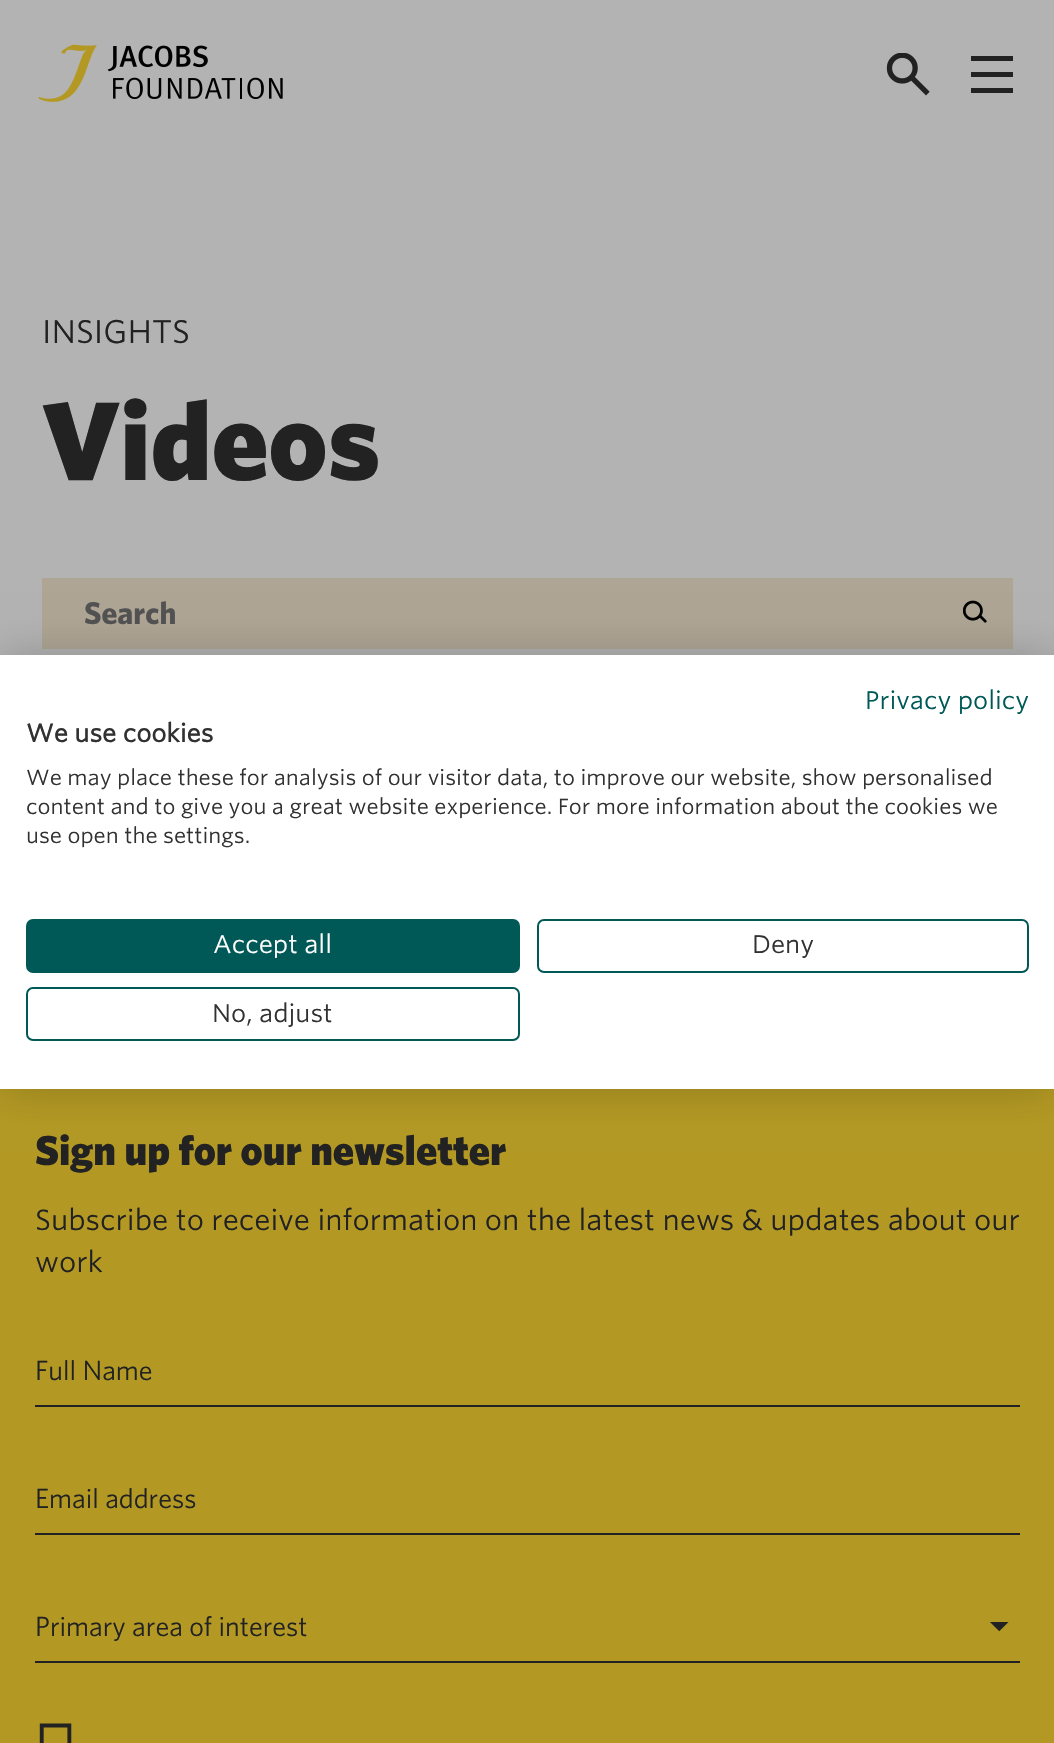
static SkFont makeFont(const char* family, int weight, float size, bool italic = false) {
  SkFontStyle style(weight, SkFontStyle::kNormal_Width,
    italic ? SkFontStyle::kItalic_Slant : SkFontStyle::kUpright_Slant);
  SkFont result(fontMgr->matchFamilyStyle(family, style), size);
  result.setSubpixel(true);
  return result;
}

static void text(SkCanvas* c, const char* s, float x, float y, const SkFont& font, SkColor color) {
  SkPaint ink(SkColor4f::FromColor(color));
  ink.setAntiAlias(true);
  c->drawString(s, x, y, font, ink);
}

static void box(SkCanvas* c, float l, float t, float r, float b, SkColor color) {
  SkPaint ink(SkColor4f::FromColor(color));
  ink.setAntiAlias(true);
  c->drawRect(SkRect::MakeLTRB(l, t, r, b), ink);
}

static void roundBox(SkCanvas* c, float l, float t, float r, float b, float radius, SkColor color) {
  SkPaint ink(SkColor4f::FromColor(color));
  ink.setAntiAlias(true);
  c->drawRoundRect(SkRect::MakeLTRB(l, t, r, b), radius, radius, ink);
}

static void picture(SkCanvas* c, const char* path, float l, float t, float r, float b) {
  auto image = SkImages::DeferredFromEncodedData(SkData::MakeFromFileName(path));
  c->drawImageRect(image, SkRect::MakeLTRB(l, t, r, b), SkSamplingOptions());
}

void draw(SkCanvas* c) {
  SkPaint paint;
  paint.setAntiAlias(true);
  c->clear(0xffb3b3b3);
  picture(c, "img_01.png", 38, 44, 283, 102);
  picture(c, "img_02.png", 886, 53, 930, 96);
  box(c, 971, 56, 1013, 61, 0xff222222);
  box(c, 971, 72, 1013, 77, 0xff222222);
  box(c, 971, 88, 1013, 93, 0xff222222);
  SkFont face1 = makeFont("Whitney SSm", 400, 31.5f);
  text(c, "INSIGHTS", 42, 343, face1, 0xff222222);
  SkFont face2 = makeFont("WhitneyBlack", 900, 112);
  text(c, "Videos", 42, 480, face2, 0xff222222);
  box(c, 42, 578, 1013, 649, 0xffaea594);
  SkFont face3 = makeFont("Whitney", 700, 31.5f);
  text(c, "Search", 84, 624, face3, 0xff525252);
  picture(c, "img_03.png", 963, 600, 987, 623);
  box(c, 0, 1089, 1054, 1743, 0xffb39924);
  paint.setColor(0x33000000);
  paint.setMaskFilter(SkMaskFilter::MakeBlur(kNormal_SkBlurStyle, 21));
  c->drawRect(SkRect::MakeLTRB(0, 655, 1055, 1089), paint);
  paint.setMaskFilter(nullptr);
  box(c, 0, 655, 1054, 1089, 0xffffffff);
  SkFont face4 = makeFont("Whitney SSm", 400, 24.5f);
  text(c, "Privacy policy", 865, 709, face4, 0xff005957);
  SkFont face5 = makeFont("Whitney SSm", 700, 24.5f);
  text(c, "We use cookies", 26, 742, face5, 0xff313131);
  SkFont face6 = makeFont("Whitney SSm", 400, 21);
  text(c, "We may place these for analysis of our visitor data, to improve our website, show personalised", 26, 785, face6, 0xff313131);
  text(c, "content and to give you a great website experience. For more information about the cookies we", 26, 814, face6, 0xff313131);
  text(c, "use open the settings.", 26, 843, face6, 0xff313131);
  roundBox(c, 26, 919, 520, 973, 7, 0xff005957);
  text(c, "Accept all", 213, 953, face4, 0xffffffff);
  paint.setStyle(SkPaint::kStroke_Style);
  paint.setStrokeWidth(2);
  paint.setColor(0xff005957);
  c->drawRoundRect(SkRect::MakeLTRB(538, 920, 1028, 972), 6, 6, paint);
  text(c, "Deny", 752, 953, face4, 0xff313131);
  c->drawRoundRect(SkRect::MakeLTRB(27, 988, 519, 1040), 6, 6, paint);
  text(c, "No, adjust", 212, 1022, face4, 0xff313131);
  SkFont face7 = makeFont("WhitneyBlack", 900, 42);
  text(c, "Sign up for our newsletter", 35, 1165, face7, 0xff222222);
  SkFont face8 = makeFont("Whitney SSm", 400, 28);
  text(c, "Subscribe to receive information on the latest news & updates about our", 35, 1230, face8, 0xff222222);
  text(c, "work", 35, 1272, face8, 0xff222222);
  box(c, 35, 1405, 1020, 1407, 0xff222222);
  SkFont face9 = makeFont("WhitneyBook", 400, 28);
  text(c, "Full Name", 35, 1380, face9, 0xff222222);
  box(c, 35, 1533, 1020, 1535, 0xff222222);
  text(c, "Email address", 35, 1508, face9, 0xff222222);
  box(c, 35, 1661, 1020, 1663, 0xff222222);
  text(c, "Primary area of interest", 35, 1636, face9, 0xff222222);
  picture(c, "img_04.png", 990, 1622, 1009, 1632);
  picture(c, "img_05.png", 39, 1723, 72, 1743);
}
